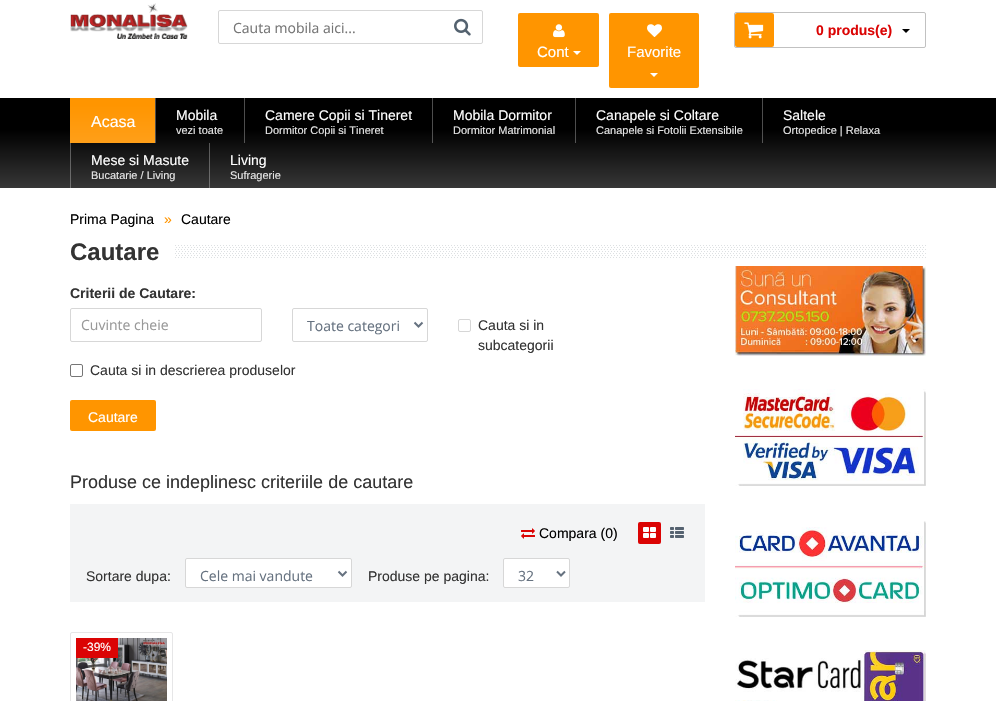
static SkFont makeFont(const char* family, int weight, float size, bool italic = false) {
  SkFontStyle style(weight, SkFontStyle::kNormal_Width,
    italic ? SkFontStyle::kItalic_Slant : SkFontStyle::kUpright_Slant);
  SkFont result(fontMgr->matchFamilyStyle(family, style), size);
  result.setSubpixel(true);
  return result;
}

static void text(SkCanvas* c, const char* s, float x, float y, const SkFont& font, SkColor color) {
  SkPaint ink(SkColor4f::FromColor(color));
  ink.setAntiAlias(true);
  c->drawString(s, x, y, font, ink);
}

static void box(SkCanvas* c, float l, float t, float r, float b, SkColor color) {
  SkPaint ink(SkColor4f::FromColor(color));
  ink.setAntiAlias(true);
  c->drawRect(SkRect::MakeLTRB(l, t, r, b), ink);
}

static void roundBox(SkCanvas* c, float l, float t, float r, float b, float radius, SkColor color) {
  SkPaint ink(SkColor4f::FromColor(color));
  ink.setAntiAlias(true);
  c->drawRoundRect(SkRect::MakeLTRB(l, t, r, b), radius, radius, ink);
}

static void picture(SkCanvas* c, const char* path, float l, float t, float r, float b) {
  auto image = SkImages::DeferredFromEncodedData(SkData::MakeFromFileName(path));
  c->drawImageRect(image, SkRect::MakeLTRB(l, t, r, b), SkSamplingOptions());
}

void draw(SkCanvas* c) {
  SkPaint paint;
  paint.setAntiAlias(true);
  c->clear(0xffffffff);
  picture(c, "img_01.png", 70, 3, 188, 39);
  paint.setStyle(SkPaint::kStroke_Style);
  paint.setStrokeWidth(1);
  paint.setColor(0xffd7d7d7);
  c->drawRoundRect(SkRect::MakeLTRB(218.5f, 10.5f, 482.5f, 43.5f), 1.5f, 1.5f, paint);
  SkFont face1 = makeFont("Open Sans", 400, 14);
  text(c, "Cauta mobila aici...", 233, 33, face1, 0xff757575);
  picture(c, "img_02.png", 454, 18, 471, 36);
  paint.setColor(0xffc1c1c1);
  c->drawRoundRect(SkRect::MakeLTRB(734.5f, 12.5f, 925.5f, 47.5f), 1.5f, 1.5f, paint);
  roundBox(c, 735, 13, 774, 47, 2, 0xffff9500);
  picture(c, "img_03.png", 744, 22, 764, 39);
  SkFont face2 = makeFont("Liberation Sans", 700, 14);
  text(c, "0 produs(e)", 816, 35, face2, 0xffdb0404);
  paint.setStyle(SkPaint::kFill_Style);
  paint.setColor(0xff000000);
  c->drawPath(SkPathBuilder().moveTo(902, 29).lineTo(910, 29).lineTo(906, 33).close().detach(), paint);
  roundBox(c, 518, 13, 599, 67, 2, 0xffff9500);
  picture(c, "img_04.png", 553, 24, 565, 38);
  SkFont face3 = makeFont("Liberation Sans", 400, 15);
  text(c, "Cont", 537, 57, face3, 0xffffffff);
  paint.setColor(0xffffffff);
  c->drawPath(SkPathBuilder().moveTo(573, 51).lineTo(581, 51).lineTo(577, 55).close().detach(), paint);
  roundBox(c, 609, 13, 699, 88, 2, 0xffff9500);
  picture(c, "img_05.png", 647, 24, 662, 37);
  text(c, "Favorite", 627, 57, face3, 0xffffffff);
  c->drawPath(SkPathBuilder().moveTo(650, 73).lineTo(658, 73).lineTo(654, 77).close().detach(), paint);
  {
    const SkColor colors[] = {0xff000000, 0xff373737};
    const float stops[] = {0.35f, 1};
    const SkPoint ends[] = {{498, 98}, {498, 188}};
    paint.setShader(SkGradientShader::MakeLinear(ends, colors, stops, 2, SkTileMode::kClamp));
    paint.setAlpha(255);
  }
  c->drawRect(SkRect::MakeLTRB(0, 98, 996, 188), paint);
  {
    const SkColor colors[] = {0xff4d4d4d, 0xff737373};
    const float stops[] = {0.35f, 1};
    const SkPoint ends[] = {{498, 98}, {498, 188}};
    paint.setShader(SkGradientShader::MakeLinear(ends, colors, stops, 2, SkTileMode::kClamp));
    paint.setAlpha(255);
  }
  c->drawRect(SkRect::MakeLTRB(209, 143, 210, 188), paint);
  c->drawRect(SkRect::MakeLTRB(70, 143, 71, 188), paint);
  c->drawRect(SkRect::MakeLTRB(762, 98, 763, 143), paint);
  c->drawRect(SkRect::MakeLTRB(575, 98, 576, 143), paint);
  c->drawRect(SkRect::MakeLTRB(432, 98, 433, 143), paint);
  c->drawRect(SkRect::MakeLTRB(244, 98, 245, 143), paint);
  c->drawRect(SkRect::MakeLTRB(155, 98, 156, 143), paint);
  {
    const SkColor colors[] = {0xffff9500, 0xffff9f19};
    const float stops[] = {0.15f, 1};
    const SkPoint ends[] = {{113, 98}, {113, 143}};
    paint.setShader(SkGradientShader::MakeLinear(ends, colors, stops, 2, SkTileMode::kClamp));
    paint.setAlpha(255);
  }
  c->drawRect(SkRect::MakeLTRB(70, 98, 155, 143), paint);
  SkFont face4 = makeFont("Liberation Sans", 400, 16);
  text(c, "Acasa", 91, 127, face4, 0xffffffff);
  SkFont face5 = makeFont("Liberation Sans", 400, 14);
  text(c, "Mobila", 176, 120, face5, 0xffffffff);
  SkFont face6 = makeFont("Liberation Sans", 400, 11);
  text(c, "vezi toate", 176, 134, face6, 0xffe6e6e6);
  text(c, "Camere Copii si Tineret", 265, 120, face5, 0xffffffff);
  text(c, "Dormitor Copii si Tineret", 265, 134, face6, 0xffe6e6e6);
  text(c, "Mobila Dormitor", 453, 120, face5, 0xffffffff);
  text(c, "Dormitor Matrimonial", 453, 134, face6, 0xffe6e6e6);
  text(c, "Canapele si Coltare", 596, 120, face5, 0xffffffff);
  text(c, "Canapele si Fotolii Extensibile", 596, 134, face6, 0xffe6e6e6);
  text(c, "Saltele", 783, 120, face5, 0xffffffff);
  text(c, "Ortopedice | Relaxa", 783, 134, face6, 0xffe6e6e6);
  text(c, "Mese si Masute", 91, 165, face5, 0xffffffff);
  text(c, "Bucatarie / Living", 91, 179, face6, 0xffe6e6e6);
  text(c, "Living", 230, 165, face5, 0xffffffff);
  text(c, "Sufragerie", 230, 179, face6, 0xffe6e6e6);
  text(c, "Prima Pagina", 70, 224, face5, 0xff000000);
  text(c, "»", 164, 224, face5, 0xffff9500);
  text(c, "Cautare", 181, 224, face5, 0xff000000);
  SkFont face7 = makeFont("Liberation Sans", 700, 24);
  text(c, "Cautare", 70, 260, face7, 0xff333333);
  picture(c, "img_06.png", 175, 245, 926, 258);
  text(c, "Criterii de Cautare:", 70, 298, face2, 0xff333333);
  paint.setStyle(SkPaint::kStroke_Style);
  paint.setShader(nullptr);
  paint.setColor(0xffd7d7d7);
  c->drawRoundRect(SkRect::MakeLTRB(70.5f, 308.5f, 261.5f, 341.5f), 1.5f, 1.5f, paint);
  text(c, "Cuvinte cheie", 81, 330, face1, 0xff999999);
  c->drawRoundRect(SkRect::MakeLTRB(292.5f, 308.5f, 427.5f, 341.5f), 1.5f, 1.5f, paint);
  paint.setStrokeWidth(2);
  paint.setColor(0xff667280);
  c->drawPath(SkPathBuilder().moveTo(414.5f, 322.5f).lineTo(418.5f, 326.5f).lineTo(422.5f, 322.5f).detach(), paint);
  text(c, "Toate categori", 307, 331, face1, 0xff667280);
  paint.setStrokeWidth(1);
  paint.setColor(0xffd6d6d6);
  c->drawRoundRect(SkRect::MakeLTRB(458.5f, 319.5f, 470.5f, 331.5f), 1.5f, 1.5f, paint);
  text(c, "Cauta si in", 478, 330, face5, 0xff333333);
  text(c, "subcategorii", 478, 350, face5, 0xff333333);
  paint.setColor(0xff767676);
  c->drawRoundRect(SkRect::MakeLTRB(70.5f, 364.5f, 82.5f, 376.5f), 1.5f, 1.5f, paint);
  text(c, "Cauta si in descrierea produselor", 90, 375, face5, 0xff333333);
  roundBox(c, 70, 400, 156, 431, 2, 0xffff9500);
  text(c, "Cautare", 88, 422, face5, 0xffffffff);
  SkFont face8 = makeFont("Liberation Sans", 400, 18);
  text(c, "Produse ce indeplinesc criteriile de cautare", 70, 488, face8, 0xff333333);
  box(c, 70, 504, 705, 602, 0xfff3f4f5);
  picture(c, "img_07.png", 521, 528, 535, 539);
  text(c, "Compara (0)", 539, 538, face5, 0xff000000);
  roundBox(c, 638, 522, 661, 544, 2, 0xffdb0404);
  picture(c, "img_08.png", 643, 527, 656, 538);
  picture(c, "img_09.png", 670, 527, 684, 538);
  text(c, "Sortare dupa:", 86, 581, face5, 0xff333333);
  paint.setStyle(SkPaint::kFill_Style);
  paint.setColor(0xffffffff);
  c->drawRoundRect(SkRect::MakeLTRB(185.5f, 558.5f, 351.5f, 587.5f), 1.5f, 1.5f, paint);
  paint.setStyle(SkPaint::kStroke_Style);
  paint.setColor(0xffd7d7d7);
  c->drawRoundRect(SkRect::MakeLTRB(185.5f, 558.5f, 351.5f, 587.5f), 1.5f, 1.5f, paint);
  paint.setStrokeWidth(2);
  paint.setColor(0xff667280);
  c->drawPath(SkPathBuilder().moveTo(338.5f, 571.5f).lineTo(342.5f, 575.5f).lineTo(346.5f, 571.5f).detach(), paint);
  text(c, "Cele mai vandute", 200, 581, face1, 0xff667280);
  text(c, "Produse pe pagina:", 368, 581, face5, 0xff333333);
  paint.setStyle(SkPaint::kFill_Style);
  paint.setColor(0xffffffff);
  c->drawRoundRect(SkRect::MakeLTRB(503.5f, 558.5f, 569.5f, 587.5f), 1.5f, 1.5f, paint);
  paint.setStyle(SkPaint::kStroke_Style);
  paint.setStrokeWidth(1);
  paint.setColor(0xffd7d7d7);
  c->drawRoundRect(SkRect::MakeLTRB(503.5f, 558.5f, 569.5f, 587.5f), 1.5f, 1.5f, paint);
  paint.setStrokeWidth(2);
  paint.setColor(0xff667280);
  c->drawPath(SkPathBuilder().moveTo(557, 571.5f).lineTo(561, 575.5f).lineTo(565, 571.5f).detach(), paint);
  text(c, "32", 518, 581, face1, 0xff667280);
  paint.setStrokeWidth(1);
  paint.setColor(0xffe6e6e7);
  c->drawRoundRect(SkRect::MakeLTRB(70.5f, 632.5f, 172.5f, 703.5f), 1.5f, 1.5f, paint);
  picture(c, "img_10.png", 76, 638, 167, 701);
  box(c, 76, 638, 118, 658, 0xffdb0404);
  SkFont face9 = makeFont("Liberation Sans", 400, 12);
  text(c, "-39%", 83, 651, face9, 0xffffffff);
  picture(c, "img_11.png", 735, 266, 926, 356);
  picture(c, "img_12.png", 735, 389, 926, 486);
  picture(c, "img_13.png", 735, 521, 926, 617);
  picture(c, "img_14.png", 735, 650, 926, 701);
}
